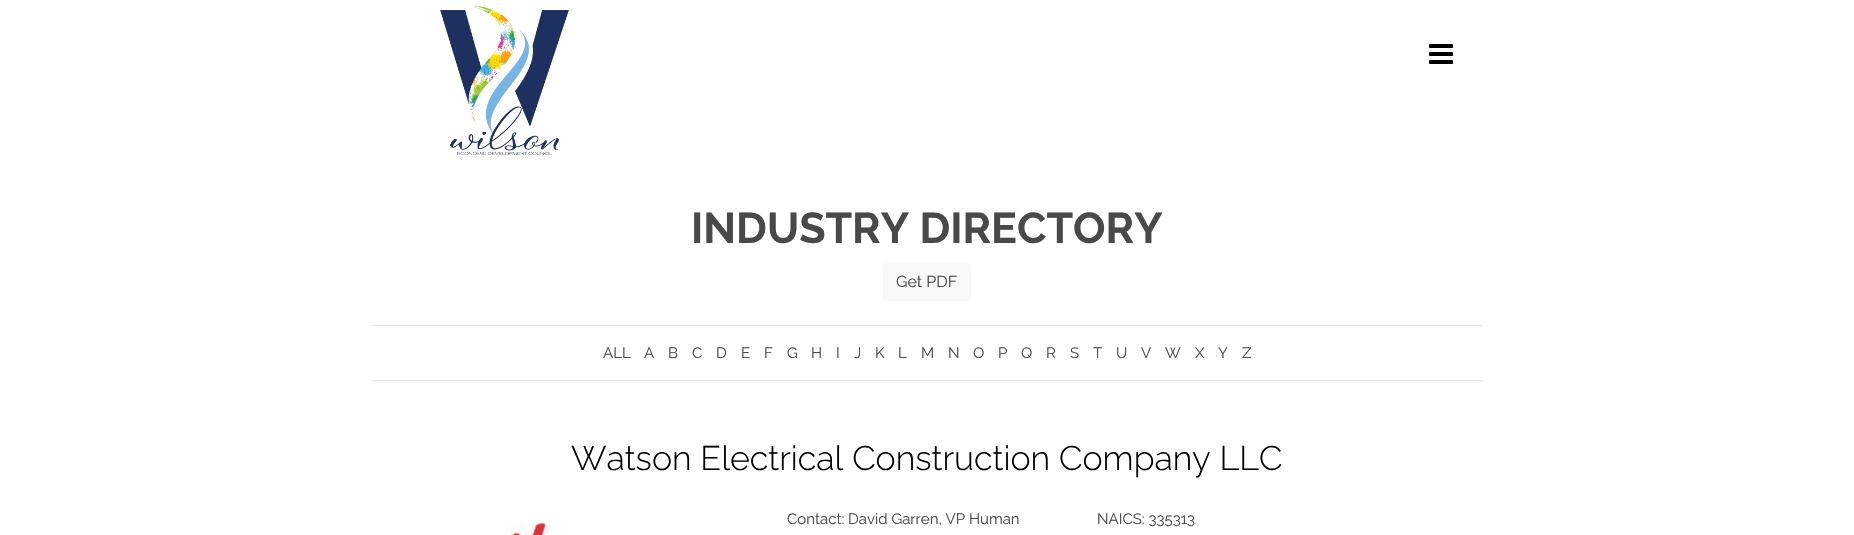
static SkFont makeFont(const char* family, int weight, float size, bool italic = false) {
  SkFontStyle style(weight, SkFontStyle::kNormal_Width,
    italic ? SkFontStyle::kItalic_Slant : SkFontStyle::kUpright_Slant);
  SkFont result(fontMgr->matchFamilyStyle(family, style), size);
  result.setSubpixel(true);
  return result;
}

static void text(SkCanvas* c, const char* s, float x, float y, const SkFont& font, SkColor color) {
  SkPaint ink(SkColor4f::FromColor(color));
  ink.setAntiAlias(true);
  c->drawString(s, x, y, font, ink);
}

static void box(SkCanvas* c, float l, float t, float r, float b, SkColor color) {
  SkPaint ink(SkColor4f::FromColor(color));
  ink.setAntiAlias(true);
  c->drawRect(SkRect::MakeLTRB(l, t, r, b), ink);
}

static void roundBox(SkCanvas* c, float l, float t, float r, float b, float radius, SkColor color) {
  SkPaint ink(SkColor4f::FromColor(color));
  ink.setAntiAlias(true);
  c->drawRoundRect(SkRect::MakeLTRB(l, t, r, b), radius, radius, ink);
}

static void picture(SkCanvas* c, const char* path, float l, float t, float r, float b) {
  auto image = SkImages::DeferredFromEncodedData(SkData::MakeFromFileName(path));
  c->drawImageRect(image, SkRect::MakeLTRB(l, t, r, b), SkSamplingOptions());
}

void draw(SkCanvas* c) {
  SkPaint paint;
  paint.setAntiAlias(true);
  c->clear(0xffffffff);
  picture(c, "img_01.png", 440, 5, 569, 155);
  picture(c, "img_02.png", 1429, 44, 1453, 64);
  SkFont face1 = makeFont("Raleway", 700, 43);
  text(c, "INDUSTRY DIRECTORY", 691, 243, face1, 0xff494949);
  roundBox(c, 883, 263, 971, 301, 4, 0xfff8f9fa);
  SkFont face2 = makeFont("Raleway", 400, 16);
  text(c, "Get PDF", 896, 287, face2, 0xff494949);
  box(c, 372, 325, 1482, 326, 0xffe6e6e6);
  SkFont face3 = makeFont("Raleway", 400, 15);
  text(c, "ALL", 603, 358, face3, 0xff494949);
  text(c, "A", 644, 358, face3, 0xff494949);
  text(c, "B", 668, 358, face3, 0xff494949);
  text(c, "C", 692, 358, face3, 0xff494949);
  text(c, "D", 716, 358, face3, 0xff494949);
  text(c, "E", 741, 358, face3, 0xff494949);
  text(c, "F", 764, 358, face3, 0xff494949);
  text(c, "G", 787, 358, face3, 0xff494949);
  text(c, "H", 811, 358, face3, 0xff494949);
  text(c, "I", 836, 358, face3, 0xff494949);
  text(c, "J", 854, 358, face3, 0xff494949);
  text(c, "K", 875, 358, face3, 0xff494949);
  text(c, "L", 898, 358, face3, 0xff494949);
  text(c, "M", 921, 358, face3, 0xff494949);
  text(c, "N", 948, 358, face3, 0xff494949);
  text(c, "O", 973, 358, face3, 0xff494949);
  text(c, "P", 998, 358, face3, 0xff494949);
  text(c, "Q", 1021, 358, face3, 0xff494949);
  text(c, "R", 1046, 358, face3, 0xff494949);
  text(c, "S", 1070, 358, face3, 0xff494949);
  text(c, "T", 1093, 358, face3, 0xff494949);
  text(c, "U", 1116, 358, face3, 0xff494949);
  text(c, "V", 1141, 358, face3, 0xff494949);
  text(c, "W", 1165, 358, face3, 0xff494949);
  text(c, "X", 1195, 358, face3, 0xff494949);
  text(c, "Y", 1218, 358, face3, 0xff494949);
  text(c, "Z", 1242, 358, face3, 0xff494949);
  box(c, 372, 380, 1482, 381, 0xffe6e6e6);
  SkFont face4 = makeFont("Raleway", 300, 34);
  text(c, "Watson Electrical Construction Company LLC", 571, 470, face4, 0xff000000);
  picture(c, "img_03.png", 506, 521, 550, 535);
  text(c, "Contact: David Garren, VP Human", 787, 524, face3, 0xff494949);
  text(c, "NAICS: 335313", 1097, 524, face3, 0xff494949);
}
